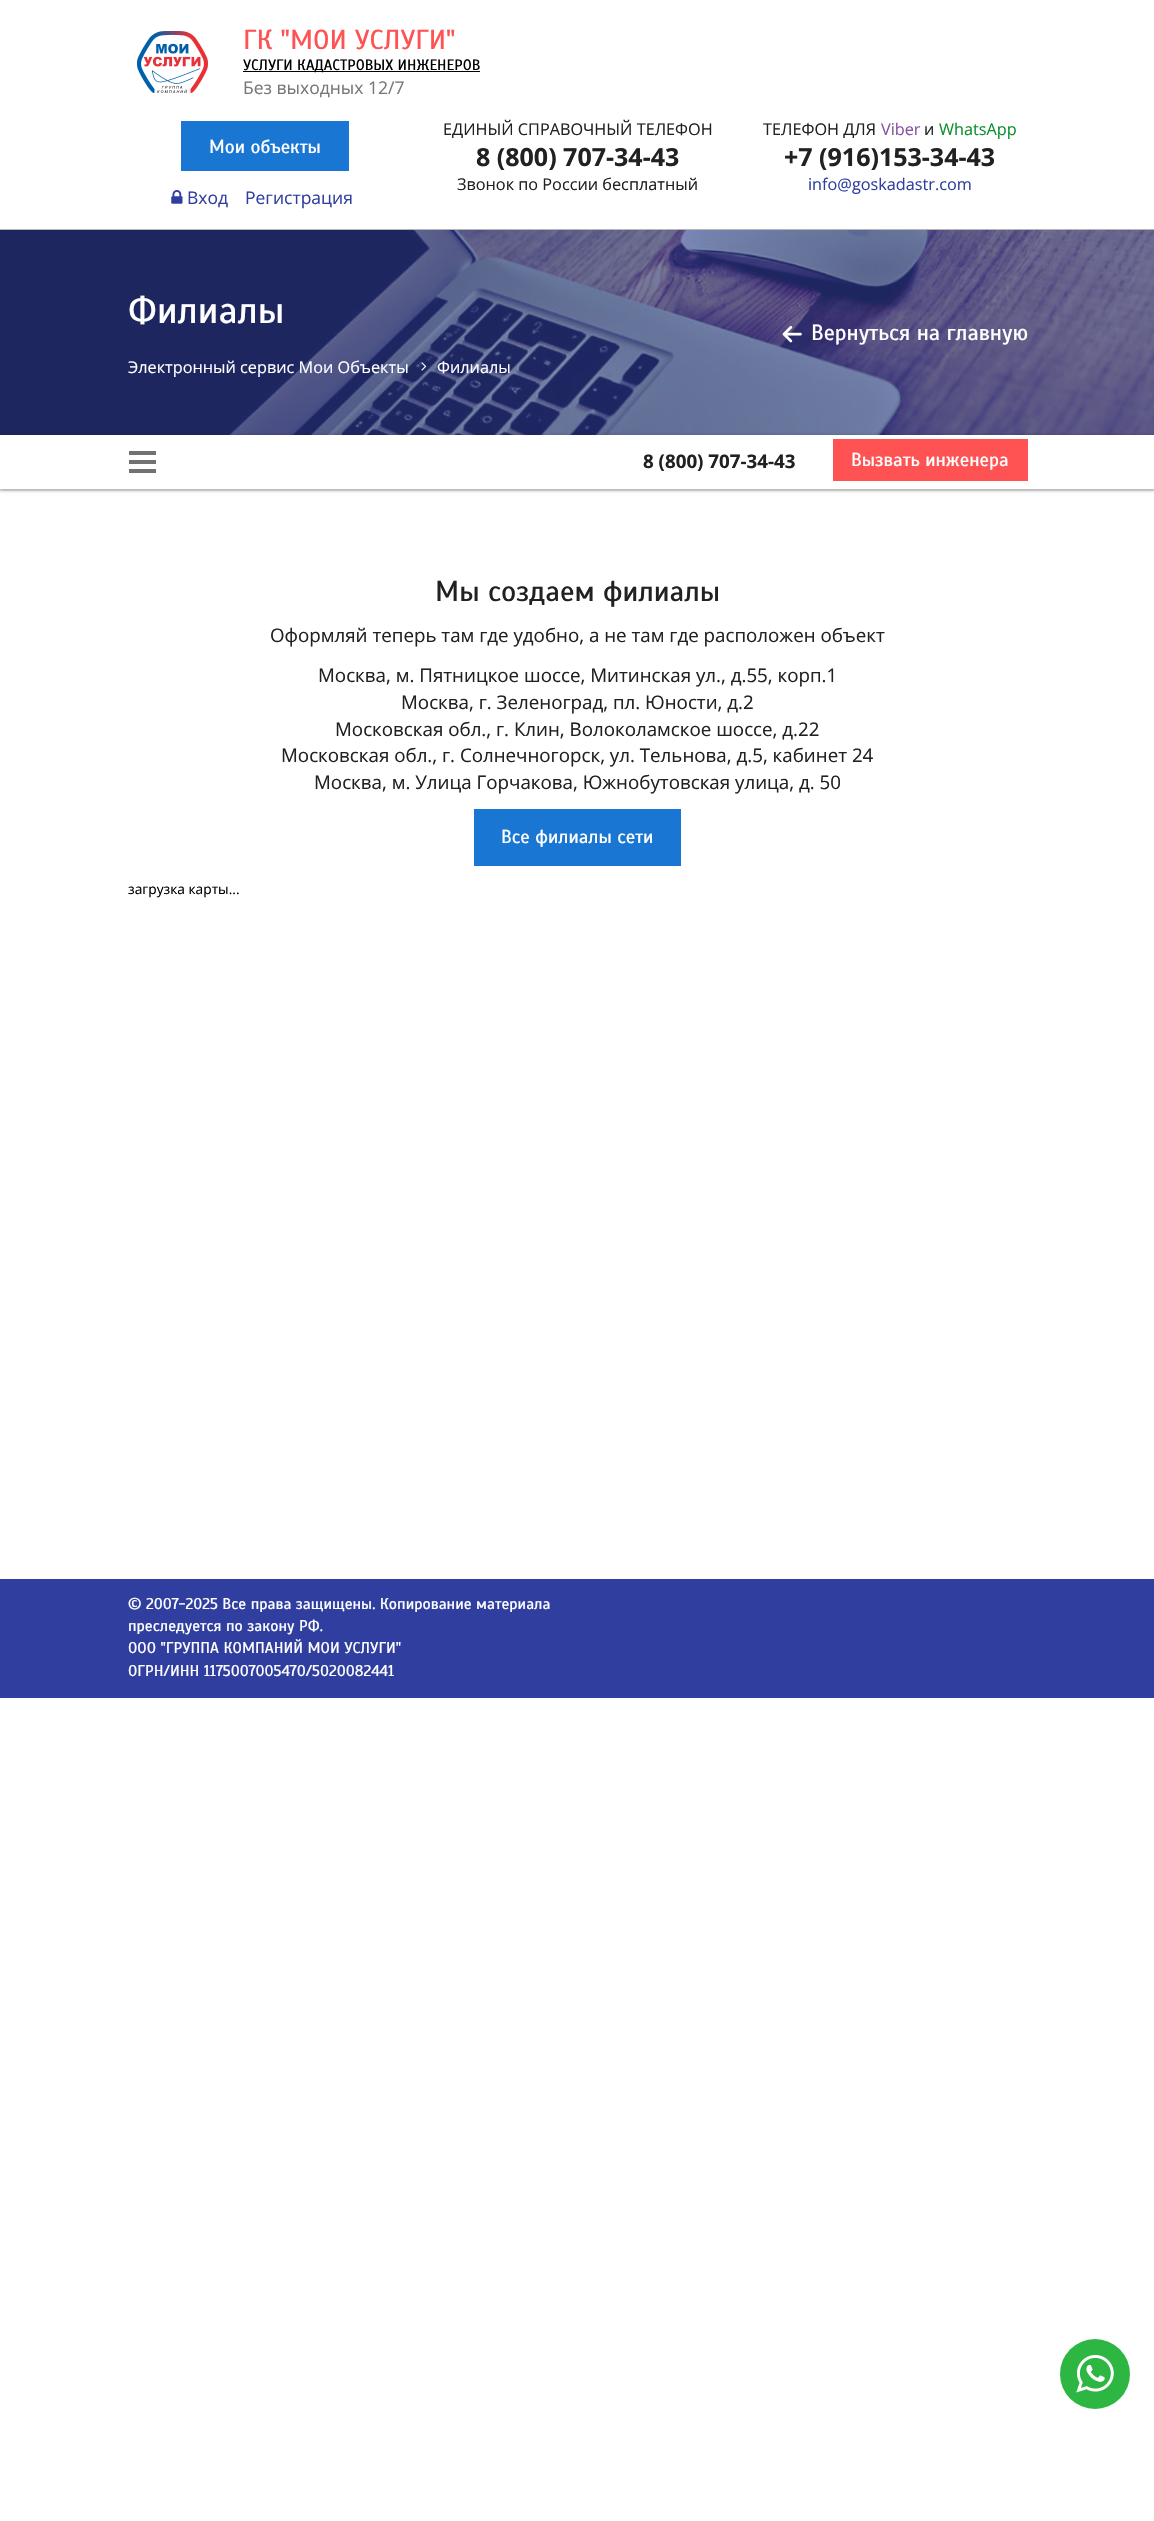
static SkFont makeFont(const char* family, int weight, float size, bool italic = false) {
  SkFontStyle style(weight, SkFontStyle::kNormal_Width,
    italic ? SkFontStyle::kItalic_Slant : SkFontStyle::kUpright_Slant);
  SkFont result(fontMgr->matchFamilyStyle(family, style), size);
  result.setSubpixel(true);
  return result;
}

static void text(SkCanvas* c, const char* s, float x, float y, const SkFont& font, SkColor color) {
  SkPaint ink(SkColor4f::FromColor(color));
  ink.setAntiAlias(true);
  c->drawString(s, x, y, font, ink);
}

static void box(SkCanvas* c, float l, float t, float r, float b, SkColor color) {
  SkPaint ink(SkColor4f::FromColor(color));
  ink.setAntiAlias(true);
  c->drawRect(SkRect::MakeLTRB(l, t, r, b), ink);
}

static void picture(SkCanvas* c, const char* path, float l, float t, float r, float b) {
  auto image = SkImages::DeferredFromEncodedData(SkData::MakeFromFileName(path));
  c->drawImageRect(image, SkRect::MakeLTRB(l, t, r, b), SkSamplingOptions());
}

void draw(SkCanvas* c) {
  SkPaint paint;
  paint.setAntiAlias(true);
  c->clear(0xffffffff);
  box(c, 0, 229, 1154, 230, 0xffb6b6b6);
  picture(c, "img_01.png", 137, 31, 208, 93);
  SkFont face1 = makeFont("Scada", 400, 27.5f);
  text(c, "ГК \"МОИ УСЛУГИ\"", 243, 49, face1, 0xffff5252);
  box(c, 243, 71, 480, 72, 0xff000000);
  SkFont face2 = makeFont("Scada", 400, 15);
  text(c, "УСЛУГИ КАДАСТРОВЫХ ИНЖЕНЕРОВ", 243, 70, face2, 0xff000000);
  SkFont face3 = makeFont("Open Sans", 400, 17.5f);
  text(c, "Без выходных 12/7", 243, 94, face3, 0xff777777);
  box(c, 181, 121, 349, 171, 0xff1976d2);
  SkFont face4 = makeFont("Scada", 400, 18.75f);
  text(c, "Мои объекты", 209, 153, face4, 0xffffffff);
  picture(c, "img_02.png", 171, 190, 183, 204);
  text(c, "Вход", 187, 204, face3, 0xff303f9f);
  text(c, "Регистрация", 245, 204, face3, 0xff303f9f);
  SkFont face5 = makeFont("Open Sans", 400, 16.25f);
  text(c, "ЕДИНЫЙ СПРАВОЧНЫЙ ТЕЛЕФОН", 443, 135, face5, 0xff212121);
  SkFont face6 = makeFont("Open Sans", 700, 25);
  text(c, "8 (800) 707-34-43", 476, 166, face6, 0xff212121);
  text(c, "Звонок по России бесплатный", 457, 190, face5, 0xff212121);
  text(c, "ТЕЛЕФОН ДЛЯ", 763, 135, face5, 0xff212121);
  text(c, "Viber", 881, 135, face5, 0xff8850a1);
  text(c, "и", 924, 135, face5, 0xff212121);
  text(c, "WhatsApp", 939, 135, face5, 0xff0d8f2c);
  text(c, "+7 (916)153-34-43", 784, 166, face6, 0xff212121);
  text(c, "info@goskadastr.com", 808, 190, face5, 0xff303f9f);
  picture(c, "img_03.png", 0, 230, 1154, 435);
  SkFont face7 = makeFont("Scada", 400, 37.5f);
  text(c, "Филиалы", 128, 323, face7, 0xffffffff);
  text(c, "Электронный сервис Мои Объекты", 128, 373, face5, 0xffffffff);
  picture(c, "img_04.png", 421, 362, 427, 371);
  text(c, "Филиалы", 437, 373, face5, 0xffffffff);
  picture(c, "img_05.png", 782, 326, 802, 343);
  SkFont face8 = makeFont("Scada", 400, 22);
  text(c, "Вернуться на главную", 811, 340, face8, 0xffffffff);
  paint.setColor(0x4d000000);
  paint.setMaskFilter(SkMaskFilter::MakeBlur(kNormal_SkBlurStyle, 2));
  c->drawRect(SkRect::MakeLTRB(0, 436, 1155, 490), paint);
  paint.setMaskFilter(nullptr);
  paint.setColor(0x1a000000);
  paint.setMaskFilter(SkMaskFilter::MakeBlur(kNormal_SkBlurStyle, 0.5f));
  c->drawRect(SkRect::MakeLTRB(0, 438, 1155, 491), paint);
  paint.setMaskFilter(nullptr);
  box(c, 0, 435, 1154, 489, 0xffffffff);
  box(c, 129, 451, 156, 455, 0xff727272);
  box(c, 129, 460, 156, 464, 0xff727272);
  box(c, 129, 469, 156, 473, 0xff727272);
  SkFont face9 = makeFont("Open Sans", 700, 18.75f);
  text(c, "8 (800) 707-34-43", 643, 468, face9, 0xff212121);
  box(c, 833, 439, 1028, 481, 0xffff5252);
  text(c, "Вызвать инженера", 851, 466, face4, 0xffffffff);
  SkFont face10 = makeFont("Scada", 400, 28.75f);
  text(c, "Мы создаем филиалы", 435, 601, face10, 0xff212121);
  SkFont face11 = makeFont("Open Sans", 400, 18.75f);
  text(c, "Оформляй теперь там где удобно, а не там где расположен объект", 270, 642, face11, 0xff212121);
  text(c, "Москва, м. Пятницкое шоссе, Митинская ул., д.55, корп.1", 318, 682, face11, 0xff212121);
  text(c, "Москва, г. Зеленоград, пл. Юности, д.2", 401, 709, face11, 0xff212121);
  text(c, "Московская обл., г. Клин, Волоколамское шоссе, д.22", 335, 736, face11, 0xff212121);
  text(c, "Московская обл., г. Солнечногорск, ул. Тельнова, д.5, кабинет 24", 281, 762, face11, 0xff212121);
  text(c, "Москва, м. Улица Горчакова, Южнобутовская улица, д. 50", 314, 789, face11, 0xff212121);
  box(c, 474, 809, 681, 866, 0xff1976d2);
  text(c, "Все филиалы сети", 501, 843, face4, 0xffffffff);
  SkFont face12 = makeFont("Open Sans", 400, 13.75f);
  text(c, "загрузка карты...", 128, 894, face12, 0xff000000);
  box(c, 0, 1579, 1154, 1698, 0xff303f9f);
  SkFont face13 = makeFont("Scada", 400, 15.55f);
  text(c, "© 2007-2025 Все права защищены. Копирование материала", 128, 1609, face13, 0xffffffff);
  text(c, "преследуется по закону РФ.", 128, 1631, face13, 0xffffffff);
  text(c, "ООО \"ГРУППА КОМПАНИЙ МОИ УСЛУГИ\"", 128, 1653, face13, 0xffffffff);
  text(c, "ОГРН/ИНН 1175007005470/5020082441", 128, 1676, face13, 0xffffffff);
  paint.setColor(0xff2db742);
  c->drawCircle(1095, 2374, 35, paint);
  picture(c, "img_06.png", 1076, 2355, 1114, 2393);
}
